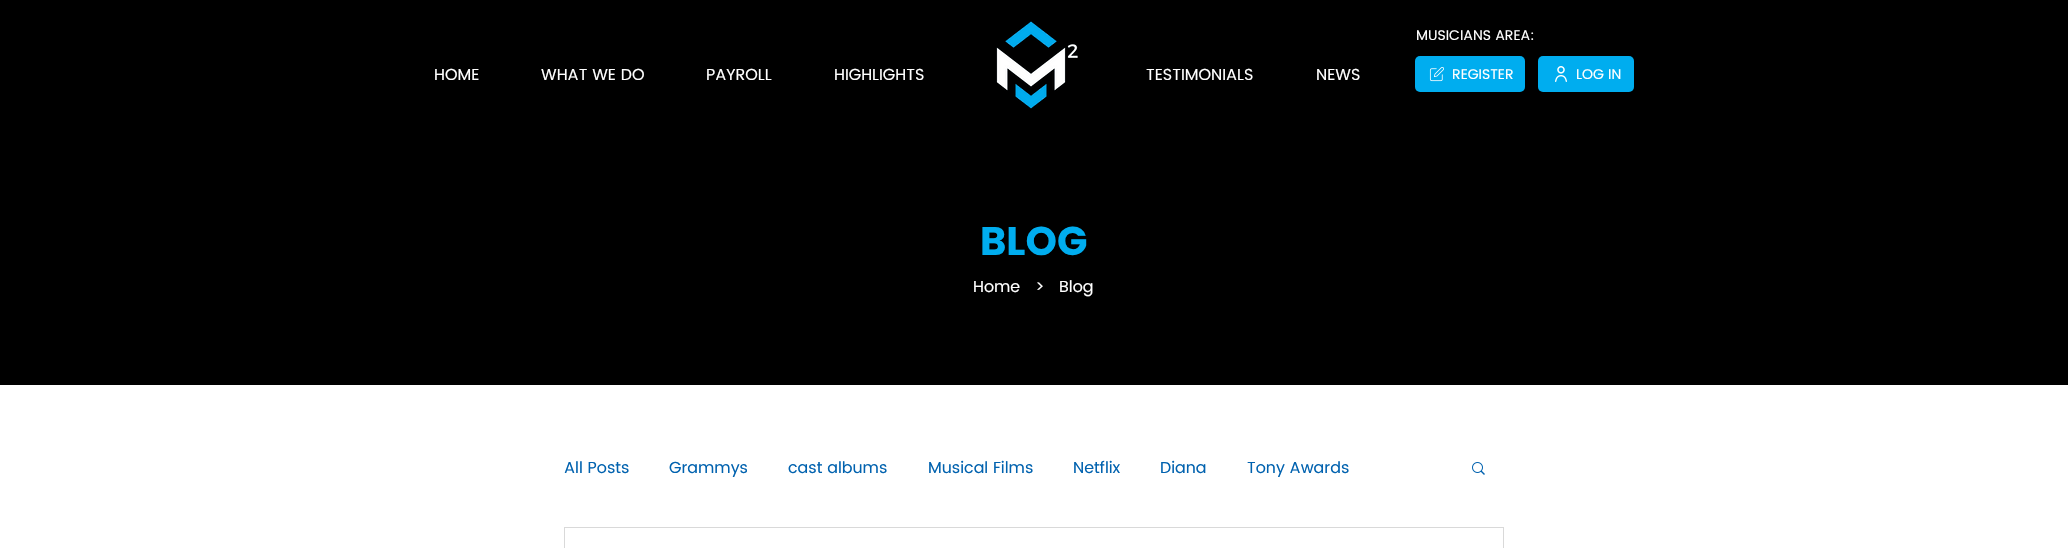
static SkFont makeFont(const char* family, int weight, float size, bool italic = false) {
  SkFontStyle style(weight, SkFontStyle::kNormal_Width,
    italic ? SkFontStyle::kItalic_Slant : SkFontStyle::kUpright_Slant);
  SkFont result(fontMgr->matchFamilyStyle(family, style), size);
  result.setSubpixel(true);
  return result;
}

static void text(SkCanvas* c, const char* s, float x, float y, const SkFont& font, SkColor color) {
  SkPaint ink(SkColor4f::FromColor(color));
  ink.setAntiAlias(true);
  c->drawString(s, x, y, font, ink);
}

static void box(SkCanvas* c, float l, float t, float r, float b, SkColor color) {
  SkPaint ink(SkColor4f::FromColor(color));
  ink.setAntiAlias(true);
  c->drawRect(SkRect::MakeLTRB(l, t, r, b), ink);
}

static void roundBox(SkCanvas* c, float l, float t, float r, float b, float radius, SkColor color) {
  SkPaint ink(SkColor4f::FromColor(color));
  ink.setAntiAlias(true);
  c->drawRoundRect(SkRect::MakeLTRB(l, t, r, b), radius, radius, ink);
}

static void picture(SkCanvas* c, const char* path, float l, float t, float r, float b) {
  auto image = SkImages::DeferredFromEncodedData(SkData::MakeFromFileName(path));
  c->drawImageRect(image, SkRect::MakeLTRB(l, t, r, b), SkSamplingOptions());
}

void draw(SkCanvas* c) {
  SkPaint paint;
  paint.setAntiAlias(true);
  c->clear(0xffffffff);
  box(c, 0, 0, 2068, 385, 0xff000000);
  SkFont face1 = makeFont("Poppins", 400, 16);
  text(c, "HOME", 434, 80, face1, 0xffffffff);
  text(c, "WHAT WE DO", 541, 80, face1, 0xffffffff);
  text(c, "PAYROLL", 706, 80, face1, 0xffffffff);
  text(c, "HIGHLIGHTS", 834, 80, face1, 0xffffffff);
  picture(c, "img_01.png", 996, 21, 1078, 109);
  text(c, "TESTIMONIALS", 1146, 80, face1, 0xffffffff);
  text(c, "NEWS", 1316, 80, face1, 0xffffffff);
  SkFont face2 = makeFont("Poppins", 400, 14);
  text(c, "MUSICIANS AREA:", 1416, 40, face2, 0xffffffff);
  roundBox(c, 1415, 56, 1525, 92, 5, 0xff00adef);
  picture(c, "img_02.png", 1429, 67, 1444, 82);
  text(c, "REGISTER", 1452, 79, face2, 0xffffffff);
  roundBox(c, 1538, 56, 1634, 92, 5, 0xff00adef);
  picture(c, "img_03.png", 1555, 66, 1567, 82);
  text(c, "LOG IN", 1576, 79, face2, 0xffffffff);
  SkFont face3 = makeFont("Poppins", 700, 40);
  text(c, "BLOG", 980, 255, face3, 0xff00adef);
  text(c, "Home", 973, 292, face1, 0xffffffff);
  text(c, ">", 1035, 292, face1, 0xffffffff);
  text(c, "Blog", 1059, 292, face1, 0xffffffff);
  text(c, "All Posts", 564, 473, face1, 0xff0162af);
  text(c, "Grammys", 669, 473, face1, 0xff0162af);
  text(c, "cast albums", 788, 473, face1, 0xff0162af);
  text(c, "Musical Films", 928, 473, face1, 0xff0162af);
  text(c, "Netflix", 1073, 473, face1, 0xff0162af);
  text(c, "Diana", 1160, 473, face1, 0xff0162af);
  text(c, "Tony Awards", 1247, 473, face1, 0xff0162af);
  picture(c, "img_04.png", 1472, 462, 1485, 475);
  paint.setStyle(SkPaint::kStroke_Style);
  paint.setStrokeWidth(1);
  paint.setColor(0xffd9d9d9);
  c->drawRect(SkRect::MakeLTRB(564.5f, 527.5f, 1503.5f, 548.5f), paint);
}
